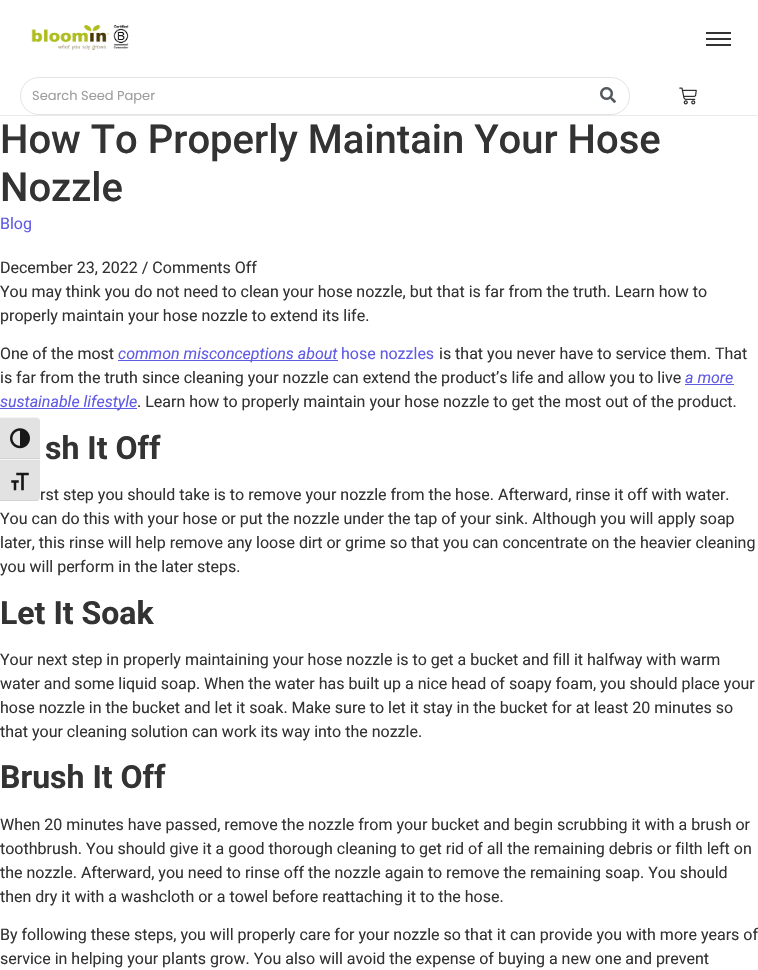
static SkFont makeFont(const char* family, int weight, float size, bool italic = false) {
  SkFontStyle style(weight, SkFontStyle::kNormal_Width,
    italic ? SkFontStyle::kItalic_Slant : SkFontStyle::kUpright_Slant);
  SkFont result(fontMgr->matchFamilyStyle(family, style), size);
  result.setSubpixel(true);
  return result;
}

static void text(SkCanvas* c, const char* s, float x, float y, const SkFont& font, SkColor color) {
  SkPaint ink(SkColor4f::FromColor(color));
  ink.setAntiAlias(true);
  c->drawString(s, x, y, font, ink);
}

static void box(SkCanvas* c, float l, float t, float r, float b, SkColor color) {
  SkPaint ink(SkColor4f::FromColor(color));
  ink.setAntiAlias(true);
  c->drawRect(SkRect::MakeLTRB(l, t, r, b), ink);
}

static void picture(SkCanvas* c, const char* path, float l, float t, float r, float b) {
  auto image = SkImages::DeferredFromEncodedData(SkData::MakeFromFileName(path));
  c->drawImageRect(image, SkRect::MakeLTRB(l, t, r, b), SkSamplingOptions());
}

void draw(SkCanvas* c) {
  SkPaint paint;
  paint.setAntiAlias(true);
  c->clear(0xffffffff);
  box(c, 0, 115, 758, 116, 0xffeaeaea);
  picture(c, "img_01.png", 31, 25, 129, 51);
  box(c, 706, 32, 731, 34, 0xff333333);
  box(c, 706, 38, 731, 40, 0xff333333);
  box(c, 706, 44, 731, 46, 0xff333333);
  paint.setStyle(SkPaint::kStroke_Style);
  paint.setStrokeWidth(1);
  paint.setColor(0xffe4e4e4);
  c->drawRoundRect(SkRect::MakeLTRB(20.5f, 77.5f, 629.5f, 114.5f), 18.5f, 18.5f, paint);
  SkFont face1 = makeFont("Poppins", 400, 13);
  text(c, "Search Seed Paper", 32, 100, face1, 0xff9e9e9e);
  picture(c, "img_02.png", 600, 87, 616, 103);
  picture(c, "img_03.png", 679, 87, 697, 105);
  SkFont face2 = makeFont("Roboto", 500, 40);
  text(c, "How To Properly Maintain Your Hose", 0, 153, face2, 0xff333333);
  text(c, "Nozzle", 0, 201, face2, 0xff333333);
  SkFont face3 = makeFont("Roboto", 400, 16);
  text(c, "Blog", 0, 229, face3, 0xff605be5);
  text(c, "December 23, 2022 / Comments Off", 0, 273, face3, 0xff333333);
  text(c, "You may think you do not need to clean your hose nozzle, but that is far from the truth. Learn how to", 0, 297, face3, 0xff333333);
  text(c, "properly maintain your hose nozzle to extend its life.", 0, 321, face3, 0xff333333);
  text(c, "One of the most", 0, 359, face3, 0xff333333);
  box(c, 118, 360, 338, 361, 0xff605be5);
  SkFont face4 = makeFont("Roboto", 400, 16, true);
  text(c, "common misconceptions about", 118, 359, face4, 0xff605be5);
  text(c, "hose nozzles", 341, 359, face3, 0xff605be5);
  text(c, "is that you never have to service them. That", 439, 359, face3, 0xff333333);
  text(c, "is far from the truth since cleaning your nozzle can extend the product’s life and allow you to live", 0, 383, face3, 0xff333333);
  text(c, "a more", 685, 383, face4, 0xff605be5);
  box(c, 685, 384, 734, 385, 0xff605be5);
  box(c, 0, 408, 137, 409, 0xff605be5);
  text(c, "sustainable lifestyle", 0, 407, face4, 0xff605be5);
  text(c, ". Learn how to properly maintain your hose nozzle to get the most out of the product.", 137, 407, face3, 0xff333333);
  SkFont face5 = makeFont("Roboto", 700, 32);
  text(c, "sh It Off", 45, 459, face5, 0xff333333);
  text(c, "rst step you should take is to remove your nozzle from the hose. Afterward, rinse it off with water.", 40, 500, face3, 0xff333333);
  text(c, "You can do this with your hose or put the nozzle under the tap of your sink. Although you will apply soap", 0, 524, face3, 0xff333333);
  text(c, "later, this rinse will help remove any loose dirt or grime so that you can concentrate on the heavier cleaning", 0, 548, face3, 0xff333333);
  text(c, "you will perform in the later steps.", 0, 572, face3, 0xff333333);
  text(c, "Let It Soak", 0, 624, face5, 0xff333333);
  text(c, "Your next step in properly maintaining your hose nozzle is to get a bucket and fill it halfway with warm", 0, 665, face3, 0xff333333);
  text(c, "water and some liquid soap. When the water has built up a nice head of soapy foam, you should place your", 0, 689, face3, 0xff333333);
  text(c, "hose nozzle in the bucket and let it soak. Make sure to let it stay in the bucket for at least 20 minutes so", 0, 713, face3, 0xff333333);
  text(c, "that your cleaning solution can work its way into the nozzle.", 0, 737, face3, 0xff333333);
  text(c, "Brush It Off", 0, 788, face5, 0xff333333);
  text(c, "When 20 minutes have passed, remove the nozzle from your bucket and begin scrubbing it with a brush or", 0, 830, face3, 0xff333333);
  text(c, "toothbrush. You should give it a good thorough cleaning to get rid of all the remaining debris or filth left on", 0, 854, face3, 0xff333333);
  text(c, "the nozzle. Afterward, you need to rinse off the nozzle again to remove the remaining soap. You should", 0, 878, face3, 0xff333333);
  text(c, "then dry it with a washcloth or a towel before reattaching it to the hose.", 0, 902, face3, 0xff333333);
  text(c, "By following these steps, you will properly care for your nozzle so that it can provide you with more years of", 0, 940, face3, 0xff333333);
  text(c, "service in helping your plants grow. You also will avoid the expense of buying a new one and prevent", 0, 964, face3, 0xff333333);
  paint.setStyle(SkPaint::kFill_Style);
  paint.setColor(0xffe2e2e2);
  c->drawPath(SkPathBuilder().moveTo(0, 417).lineTo(36, 417).cubicTo(38, 417, 40, 419, 40, 421).lineTo(40, 459).lineTo(0, 459).close().detach(), paint);
  paint.setColor(0xfff5f5f5);
  c->drawPath(SkPathBuilder().moveTo(0, 417).lineTo(0, 418).lineTo(36, 418).cubicTo(38, 418, 40, 419, 40, 421).cubicTo(40, 419, 38, 417, 36, 417).close().detach(), paint);
  box(c, 0, 458, 40, 459, 0xffd2d2d2);
  picture(c, "img_04.png", 10, 428, 30, 449);
  paint.setColor(0xffe2e2e2);
  c->drawPath(SkPathBuilder().moveTo(0, 459).lineTo(40, 459).lineTo(40, 497).cubicTo(40, 499, 38, 501, 36, 501).lineTo(0, 501).close().detach(), paint);
  box(c, 0, 459, 40, 460, 0xfff5f5f5);
  paint.setColor(0xffd2d2d2);
  c->drawPath(SkPathBuilder().moveTo(0, 500).lineTo(0, 501).lineTo(36, 501).cubicTo(38, 501, 40, 499, 40, 497).cubicTo(40, 499, 38, 500, 36, 500).close().detach(), paint);
  picture(c, "img_05.png", 11, 472, 29, 491);
}
